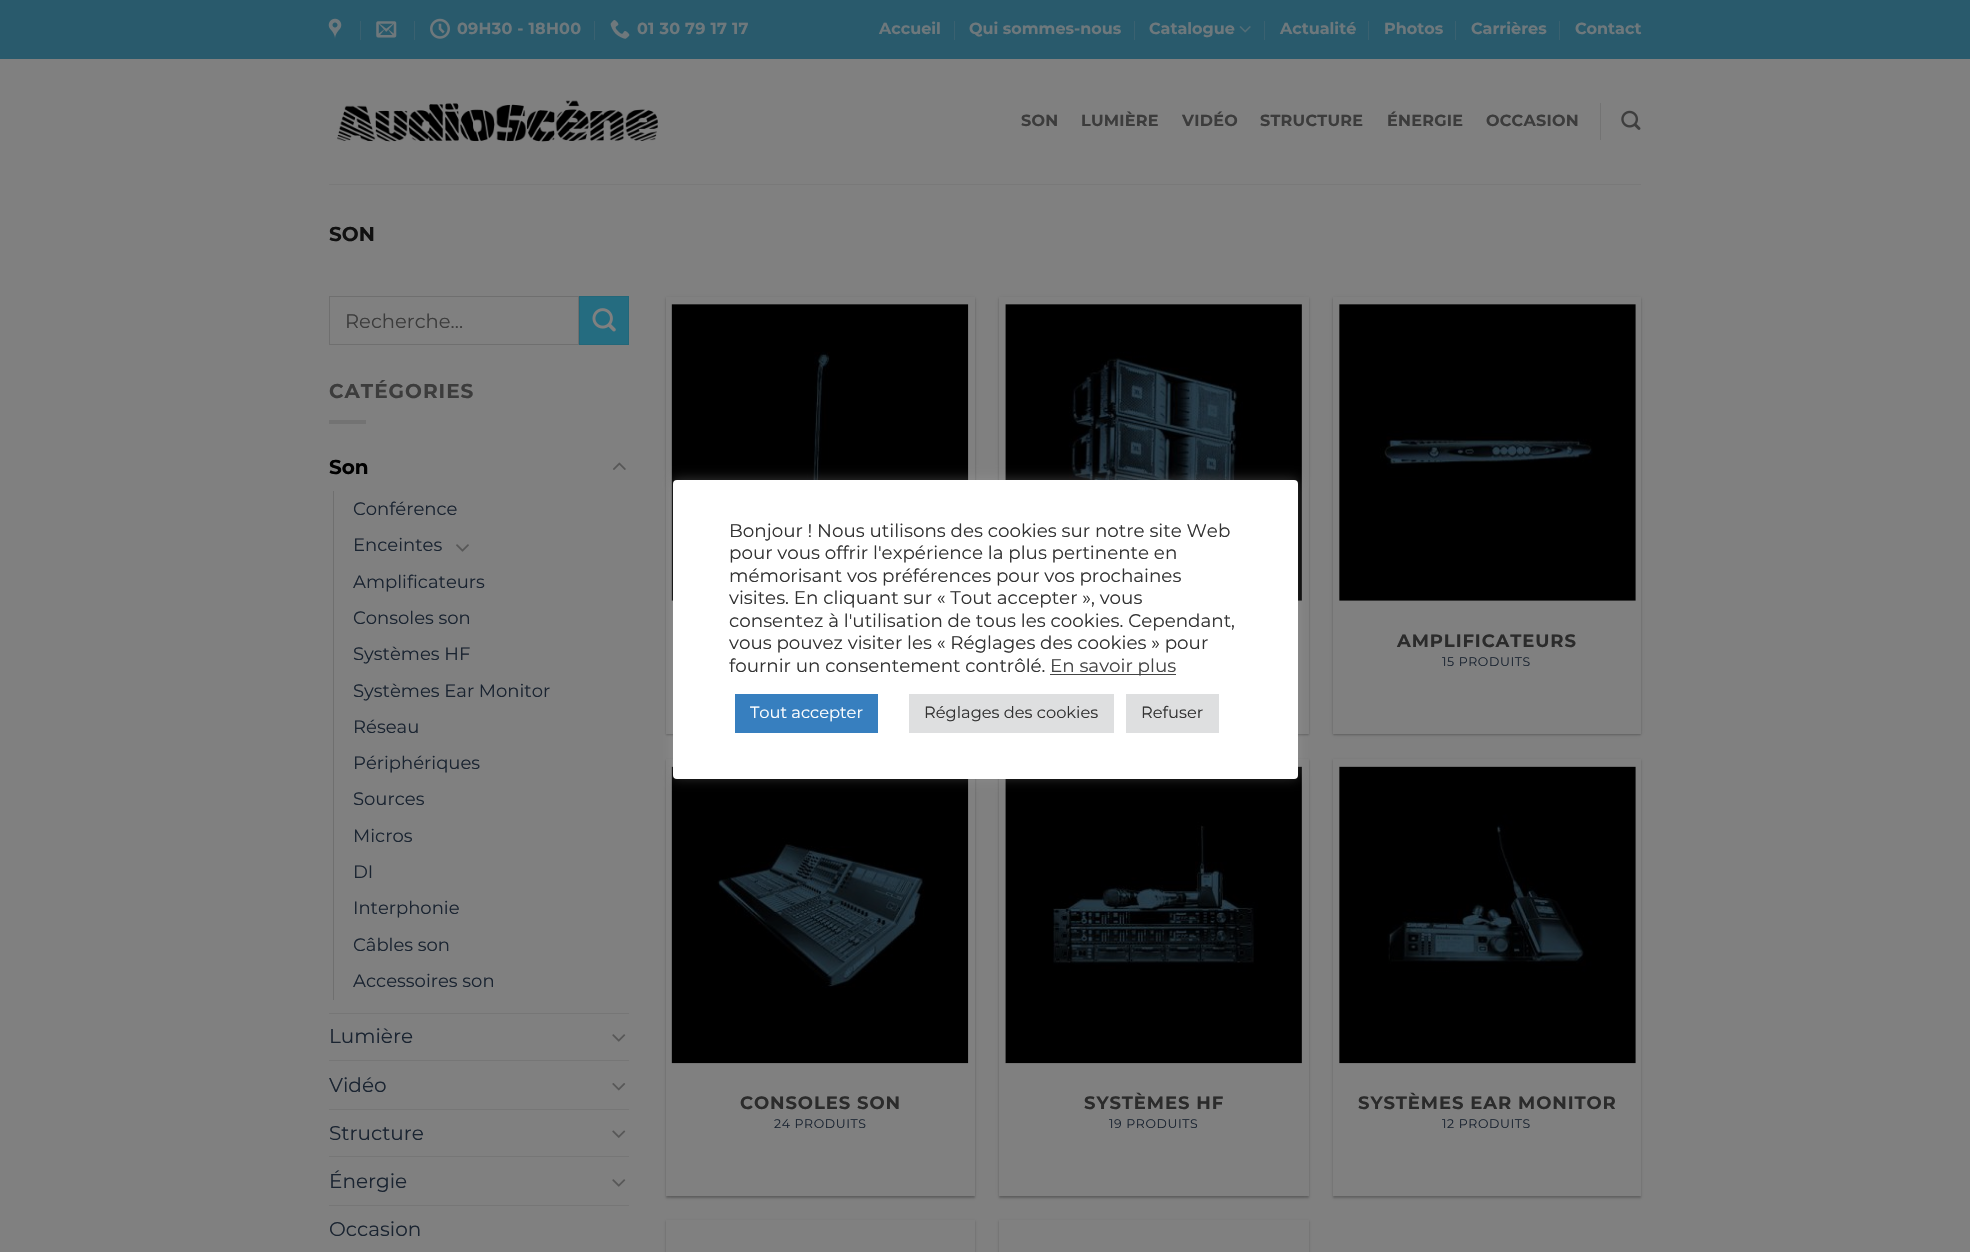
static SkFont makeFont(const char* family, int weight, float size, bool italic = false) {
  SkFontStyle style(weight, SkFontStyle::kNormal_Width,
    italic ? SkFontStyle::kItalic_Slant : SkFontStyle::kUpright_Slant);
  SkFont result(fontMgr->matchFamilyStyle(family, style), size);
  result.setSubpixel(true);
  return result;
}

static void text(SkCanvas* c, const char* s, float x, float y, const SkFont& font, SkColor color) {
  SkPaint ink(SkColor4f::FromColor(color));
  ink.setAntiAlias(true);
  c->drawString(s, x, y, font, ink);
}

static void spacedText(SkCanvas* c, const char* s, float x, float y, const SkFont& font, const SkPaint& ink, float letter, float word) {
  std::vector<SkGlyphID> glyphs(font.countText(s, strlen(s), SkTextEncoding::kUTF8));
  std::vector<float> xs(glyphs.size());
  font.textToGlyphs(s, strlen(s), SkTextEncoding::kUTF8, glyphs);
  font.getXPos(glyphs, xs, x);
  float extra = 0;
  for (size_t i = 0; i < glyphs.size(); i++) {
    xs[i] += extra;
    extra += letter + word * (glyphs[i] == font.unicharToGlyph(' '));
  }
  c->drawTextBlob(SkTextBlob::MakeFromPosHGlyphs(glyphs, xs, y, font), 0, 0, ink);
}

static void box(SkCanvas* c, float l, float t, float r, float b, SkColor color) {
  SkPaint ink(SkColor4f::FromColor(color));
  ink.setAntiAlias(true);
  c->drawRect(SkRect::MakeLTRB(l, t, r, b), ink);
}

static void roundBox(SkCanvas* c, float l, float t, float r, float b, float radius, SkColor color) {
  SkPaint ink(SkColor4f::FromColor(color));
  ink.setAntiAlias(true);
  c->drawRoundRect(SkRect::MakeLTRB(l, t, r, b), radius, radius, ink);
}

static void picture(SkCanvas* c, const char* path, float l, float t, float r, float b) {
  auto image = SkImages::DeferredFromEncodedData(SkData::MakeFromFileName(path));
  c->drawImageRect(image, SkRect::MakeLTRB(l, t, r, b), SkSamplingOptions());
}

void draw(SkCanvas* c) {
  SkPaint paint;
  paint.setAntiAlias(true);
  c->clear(0xff808080);
  box(c, 0, 0, 1970, 59, 0xff295a6c);
  picture(c, "img_01.png", 328, 18, 342, 39);
  box(c, 360, 21, 361, 40, 0xff3a6170);
  picture(c, "img_02.png", 376, 21, 397, 38);
  box(c, 414, 21, 415, 40, 0xff3a6170);
  picture(c, "img_03.png", 430, 18, 450, 39);
  SkFont face1 = makeFont("Montserrat", 700, 16);
  paint.setColor(0xff6e787c);
  spacedText(c, "09H30 - 18H00", 457, 34, face1, paint, 0.25f, 0);
  box(c, 594, 21, 595, 40, 0xff3a6170);
  picture(c, "img_04.png", 610, 20, 630, 39);
  spacedText(c, "01 30 79 17 17", 637, 34, face1, paint, 0.25f, 0);
  text(c, "Accueil", 879, 34, face1, 0xff6e787c);
  box(c, 954, 21, 955, 40, 0xff3a6170);
  text(c, "Qui sommes-nous", 969, 34, face1, 0xff6e787c);
  box(c, 1134, 21, 1135, 40, 0xff3a6170);
  text(c, "Catalogue", 1149, 34, face1, 0xff6e787c);
  picture(c, "img_05.png", 1239, 26, 1251, 33);
  box(c, 1264, 21, 1265, 40, 0xff3a6170);
  text(c, "Actualité", 1280, 34, face1, 0xff6e787c);
  box(c, 1368, 21, 1369, 40, 0xff3a6170);
  text(c, "Photos", 1384, 34, face1, 0xff6e787c);
  box(c, 1455, 21, 1456, 40, 0xff3a6170);
  text(c, "Carrières", 1471, 34, face1, 0xff6e787c);
  box(c, 1559, 21, 1560, 40, 0xff3a6170);
  text(c, "Contact", 1575, 34, face1, 0xff6e787c);
  picture(c, "img_06.png", 337, 100, 658, 142);
  paint.setColor(0xff3c3c3c);
  spacedText(c, "SON", 1021, 126, face1, paint, 0.25f, 0);
  spacedText(c, "LUMIÈRE", 1081, 126, face1, paint, 0.25f, 0);
  spacedText(c, "VIDÉO", 1182, 126, face1, paint, 0.25f, 0);
  spacedText(c, "STRUCTURE", 1260, 126, face1, paint, 0.25f, 0);
  spacedText(c, "ÉNERGIE", 1387, 126, face1, paint, 0.25f, 0);
  spacedText(c, "OCCASION", 1486, 126, face1, paint, 0.25f, 0);
  box(c, 1600, 103, 1601, 140, 0xff737373);
  picture(c, "img_07.png", 1621, 110, 1641, 130);
  box(c, 329, 184, 1641, 185, 0xff797979);
  SkFont face2 = makeFont("Montserrat", 700, 20);
  text(c, "SON", 329, 241, face2, 0xff111111);
  paint.setStyle(SkPaint::kStroke_Style);
  paint.setStrokeWidth(1);
  paint.setColor(0xff6f6f6f);
  c->drawRect(SkRect::MakeLTRB(329.5f, 296.5f, 578.5f, 344.5f), paint);
  SkFont face3 = makeFont("Montserrat", 400, 19.5f);
  text(c, "Recherche…", 345, 328, face3, 0xff3c3c3c);
  paint.setStyle(SkPaint::kFill_Style);
  paint.setColor(0xff256c80);
  c->drawRect(SkRect::MakeLTRB(579.5f, 296.5f, 628.5f, 344.5f), paint);
  paint.setStyle(SkPaint::kStroke_Style);
  paint.setColor(0xff236779);
  c->drawRect(SkRect::MakeLTRB(579.5f, 296.5f, 628.5f, 344.5f), paint);
  picture(c, "img_08.png", 592, 308, 616, 332);
  paint.setStyle(SkPaint::kFill_Style);
  paint.setColor(0xff3c3c3c);
  spacedText(c, "CATÉGORIES", 329, 398, face2, paint, 1, 0);
  box(c, 329, 420, 366, 424, 0xff737373);
  text(c, "Son", 329, 474, face2, 0xff000000);
  picture(c, "img_09.png", 613, 462, 626, 470);
  box(c, 333, 491, 334, 1000, 0xff6f6f6f);
  SkFont face4 = makeFont("Montserrat", 400, 18);
  text(c, "Conférence", 353, 515, face4, 0xff1a2431);
  text(c, "Enceintes", 353, 551, face4, 0xff1a2431);
  picture(c, "img_10.png", 456, 544, 469, 552);
  text(c, "Amplificateurs", 353, 588, face4, 0xff1a2431);
  text(c, "Consoles son", 353, 624, face4, 0xff1a2431);
  text(c, "Systèmes HF", 353, 660, face4, 0xff1a2431);
  text(c, "Systèmes Ear Monitor", 353, 697, face4, 0xff1a2431);
  text(c, "Réseau", 353, 733, face4, 0xff1a2431);
  text(c, "Périphériques", 353, 769, face4, 0xff1a2431);
  text(c, "Sources", 353, 805, face4, 0xff1a2431);
  text(c, "Micros", 353, 842, face4, 0xff1a2431);
  text(c, "DI", 353, 878, face4, 0xff1a2431);
  text(c, "Interphonie", 353, 914, face4, 0xff1a2431);
  text(c, "Câbles son", 353, 951, face4, 0xff1a2431);
  text(c, "Accessoires son", 353, 987, face4, 0xff1a2431);
  box(c, 329, 1013, 629, 1014, 0xff767676);
  SkFont face5 = makeFont("Montserrat", 400, 20);
  text(c, "Lumière", 329, 1043, face5, 0xff1a2431);
  picture(c, "img_11.png", 612, 1034, 626, 1042);
  box(c, 329, 1060, 629, 1061, 0xff767676);
  text(c, "Vidéo", 329, 1092, face5, 0xff1a2431);
  picture(c, "img_12.png", 612, 1083, 626, 1091);
  box(c, 329, 1109, 629, 1110, 0xff767676);
  text(c, "Structure", 329, 1140, face5, 0xff1a2431);
  picture(c, "img_13.png", 612, 1130, 626, 1138);
  box(c, 329, 1156, 629, 1157, 0xff767676);
  text(c, "Énergie", 329, 1188, face5, 0xff1a2431);
  picture(c, "img_11.png", 612, 1179, 626, 1187);
  box(c, 329, 1205, 629, 1206, 0xff767676);
  text(c, "Occasion", 329, 1236, face5, 0xff1a2431);
  paint.setColor(0x3d000000);
  paint.setMaskFilter(SkMaskFilter::MakeBlur(kNormal_SkBlurStyle, 1));
  c->drawRect(SkRect::MakeLTRB(666, 298, 975, 735), paint);
  paint.setMaskFilter(nullptr);
  paint.setColor(0x1f000000);
  paint.setMaskFilter(SkMaskFilter::MakeBlur(kNormal_SkBlurStyle, 2));
  c->drawRect(SkRect::MakeLTRB(669, 300, 973, 733), paint);
  paint.setMaskFilter(nullptr);
  box(c, 666, 297, 975, 734, 0xff808080);
  picture(c, "img_14.png", 671, 304, 969, 601);
  paint.setColor(0x3d000000);
  paint.setMaskFilter(SkMaskFilter::MakeBlur(kNormal_SkBlurStyle, 1));
  c->drawRect(SkRect::MakeLTRB(999, 298, 1309, 735), paint);
  paint.setMaskFilter(nullptr);
  paint.setColor(0x1f000000);
  paint.setMaskFilter(SkMaskFilter::MakeBlur(kNormal_SkBlurStyle, 2));
  c->drawRect(SkRect::MakeLTRB(1001, 300, 1306, 733), paint);
  paint.setMaskFilter(nullptr);
  box(c, 999, 297, 1309, 734, 0xff808080);
  picture(c, "img_15.png", 1005, 304, 1302, 601);
  paint.setColor(0x3d000000);
  paint.setMaskFilter(SkMaskFilter::MakeBlur(kNormal_SkBlurStyle, 1));
  c->drawRect(SkRect::MakeLTRB(1333, 298, 1641, 735), paint);
  paint.setMaskFilter(nullptr);
  paint.setColor(0x1f000000);
  paint.setMaskFilter(SkMaskFilter::MakeBlur(kNormal_SkBlurStyle, 2));
  c->drawRect(SkRect::MakeLTRB(1335, 300, 1639, 733), paint);
  paint.setMaskFilter(nullptr);
  box(c, 1333, 297, 1641, 734, 0xff808080);
  picture(c, "img_16.png", 1339, 304, 1636, 601);
  SkFont face6 = makeFont("Montserrat", 700, 18);
  paint.setColor(0xff2b2b2b);
  spacedText(c, "AMPLIFICATEURS", 1397, 647, face6, paint, 0.9f, 0);
  SkFont face7 = makeFont("Montserrat", 400, 12.5f);
  paint.setColor(0xff1a2431);
  spacedText(c, "15 PRODUITS", 1442, 666, face7, paint, 0.6f, 0);
  paint.setColor(0x3d000000);
  paint.setMaskFilter(SkMaskFilter::MakeBlur(kNormal_SkBlurStyle, 1));
  c->drawRect(SkRect::MakeLTRB(666, 760, 975, 1198), paint);
  paint.setMaskFilter(nullptr);
  paint.setColor(0x1f000000);
  paint.setMaskFilter(SkMaskFilter::MakeBlur(kNormal_SkBlurStyle, 2));
  c->drawRect(SkRect::MakeLTRB(669, 763, 973, 1195), paint);
  paint.setMaskFilter(nullptr);
  box(c, 666, 759, 975, 1196, 0xff808080);
  picture(c, "img_17.png", 671, 766, 969, 1064);
  paint.setColor(0xff2b2b2b);
  spacedText(c, "CONSOLES SON", 740, 1109, face6, paint, 0.9f, 0);
  paint.setColor(0xff1a2431);
  spacedText(c, "24 PRODUITS", 774, 1128, face7, paint, 0.6f, 0);
  paint.setColor(0x3d000000);
  paint.setMaskFilter(SkMaskFilter::MakeBlur(kNormal_SkBlurStyle, 1));
  c->drawRect(SkRect::MakeLTRB(999, 760, 1309, 1198), paint);
  paint.setMaskFilter(nullptr);
  paint.setColor(0x1f000000);
  paint.setMaskFilter(SkMaskFilter::MakeBlur(kNormal_SkBlurStyle, 2));
  c->drawRect(SkRect::MakeLTRB(1001, 763, 1306, 1195), paint);
  paint.setMaskFilter(nullptr);
  box(c, 999, 759, 1309, 1196, 0xff808080);
  picture(c, "img_18.png", 1005, 766, 1302, 1064);
  paint.setColor(0xff2b2b2b);
  spacedText(c, "SYSTÈMES HF", 1084, 1109, face6, paint, 0.9f, 0);
  paint.setColor(0xff1a2431);
  spacedText(c, "19 PRODUITS", 1109, 1128, face7, paint, 0.6f, 0);
  c->save();
  c->clipPath(SkPathBuilder(SkPathFillType::kEvenOdd).moveTo(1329, 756).lineTo(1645, 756).lineTo(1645, 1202).lineTo(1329, 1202).close().moveTo(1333, 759).lineTo(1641, 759).lineTo(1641, 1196).lineTo(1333, 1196).close().detach(), true);
  paint.setColor(0x3d000000);
  paint.setMaskFilter(SkMaskFilter::MakeBlur(kNormal_SkBlurStyle, 1));
  c->drawRect(SkRect::MakeLTRB(1333, 760, 1641, 1198), paint);
  paint.setMaskFilter(nullptr);
  c->restore();
  picture(c, "img_19.png", 1339, 766, 1636, 1064);
  paint.setColor(0xff2b2b2b);
  spacedText(c, "SYSTÈMES EAR MONITOR", 1358, 1109, face6, paint, 0.9f, 0);
  paint.setColor(0xff1a2431);
  spacedText(c, "12 PRODUITS", 1442, 1128, face7, paint, 0.6f, 0);
  paint.setColor(0x3d000000);
  paint.setMaskFilter(SkMaskFilter::MakeBlur(kNormal_SkBlurStyle, 1));
  c->drawRect(SkRect::MakeLTRB(666, 1221, 975, 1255), paint);
  paint.setMaskFilter(nullptr);
  box(c, 666, 1220, 975, 1252, 0xff808080);
  paint.setMaskFilter(SkMaskFilter::MakeBlur(kNormal_SkBlurStyle, 1));
  c->drawRect(SkRect::MakeLTRB(999, 1221, 1309, 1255), paint);
  paint.setMaskFilter(nullptr);
  box(c, 999, 1220, 1309, 1252, 0xff808080);
  paint.setColor(0x4dacabab);
  paint.setMaskFilter(SkMaskFilter::MakeBlur(kNormal_SkBlurStyle, 6));
  c->drawRoundRect(SkRect::MakeLTRB(673, 479, 1298, 778), 4, 4, paint);
  paint.setMaskFilter(nullptr);
  roundBox(c, 673, 480, 1298, 779, 4, 0xffffffff);
  SkFont face8 = makeFont("Montserrat", 400, 18.3f);
  text(c, "Bonjour ! Nous utilisons des cookies sur notre site Web", 729, 537, face8, 0xff333333);
  text(c, "pour vous offrir l'expérience la plus pertinente en", 729, 559, face8, 0xff333333);
  text(c, "mémorisant vos préférences pour vos prochaines", 729, 582, face8, 0xff333333);
  text(c, "visites. En cliquant sur « Tout accepter », vous", 729, 604, face8, 0xff333333);
  text(c, "consentez à l'utilisation de tous les cookies. Cependant,", 729, 627, face8, 0xff333333);
  text(c, "vous pouvez visiter les « Réglages des cookies » pour", 729, 649, face8, 0xff333333);
  text(c, "fournir un consentement contrôlé.", 729, 672, face8, 0xff333333);
  box(c, 1050, 674, 1176, 675, 0xff444444);
  text(c, "En savoir plus", 1050, 672, face8, 0xff444444);
  box(c, 735, 694, 878, 733, 0xff377fbf);
  SkFont face9 = makeFont("Montserrat", 400, 16.25f);
  text(c, "Tout accepter", 750, 718, face9, 0xffffffff);
  box(c, 909, 694, 1114, 733, 0xffdedfe0);
  text(c, "Réglages des cookies", 924, 718, face9, 0xff333333);
  box(c, 1126, 694, 1219, 733, 0xffdedfe0);
  text(c, "Refuser", 1141, 718, face9, 0xff333333);
}
